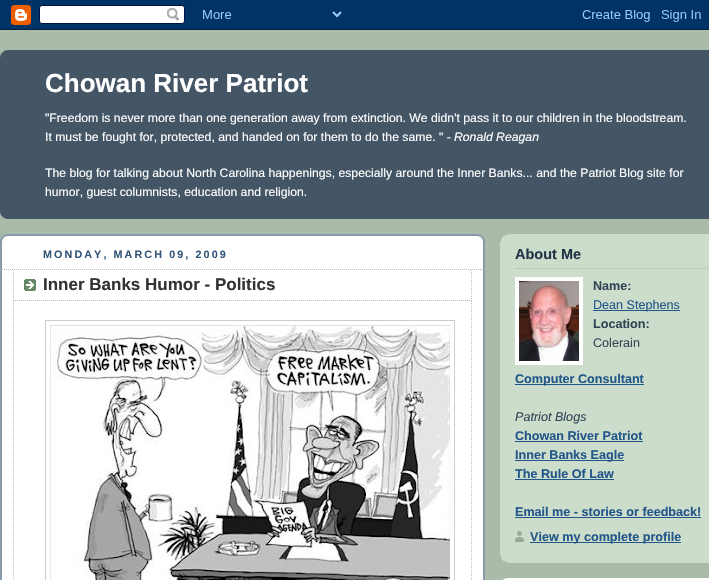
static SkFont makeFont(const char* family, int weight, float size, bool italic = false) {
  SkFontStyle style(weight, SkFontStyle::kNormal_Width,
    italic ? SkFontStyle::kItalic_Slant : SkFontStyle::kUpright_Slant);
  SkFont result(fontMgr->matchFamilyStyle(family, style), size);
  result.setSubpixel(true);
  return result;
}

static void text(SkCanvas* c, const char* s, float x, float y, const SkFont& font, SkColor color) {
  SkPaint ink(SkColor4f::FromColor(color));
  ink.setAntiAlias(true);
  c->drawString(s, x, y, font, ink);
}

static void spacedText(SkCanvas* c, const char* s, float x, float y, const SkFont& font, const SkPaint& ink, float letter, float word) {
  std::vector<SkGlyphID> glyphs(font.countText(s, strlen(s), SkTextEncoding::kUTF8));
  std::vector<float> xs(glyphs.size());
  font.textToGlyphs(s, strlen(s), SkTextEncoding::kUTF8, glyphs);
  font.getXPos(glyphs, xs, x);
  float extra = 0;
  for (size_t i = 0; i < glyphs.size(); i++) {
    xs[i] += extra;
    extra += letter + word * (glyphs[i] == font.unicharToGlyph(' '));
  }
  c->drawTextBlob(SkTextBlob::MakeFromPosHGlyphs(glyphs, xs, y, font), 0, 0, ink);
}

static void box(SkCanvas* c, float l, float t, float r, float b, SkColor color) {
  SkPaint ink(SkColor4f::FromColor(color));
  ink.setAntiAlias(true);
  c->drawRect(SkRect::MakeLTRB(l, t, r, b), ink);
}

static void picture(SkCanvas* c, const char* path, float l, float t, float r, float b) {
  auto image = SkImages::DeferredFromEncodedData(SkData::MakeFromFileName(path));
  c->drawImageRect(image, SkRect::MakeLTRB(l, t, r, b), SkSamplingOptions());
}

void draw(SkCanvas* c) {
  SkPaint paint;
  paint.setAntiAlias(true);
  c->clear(0xffaabbaa);
  picture(c, "img_01.png", 0, 0, 709, 30);
  box(c, 0, 50, 709, 219, 0xff445566);
  picture(c, "img_02.png", 0, 50, 8, 58);
  picture(c, "img_03.png", 0, 211, 8, 219);
  SkFont face1 = makeFont("Liberation Sans", 700, 26);
  text(c, "Chowan River Patriot", 45, 92, face1, 0xffffffff);
  SkFont face2 = makeFont("Liberation Sans", 400, 12.22f);
  text(c, "\"Freedom is never more than one generation away from extinction. We didn't pass it to our children in the bloodstream.", 45, 122, face2, 0xffffffff);
  text(c, "It must be fought for, protected, and handed on for them to do the same. \" -", 45, 141, face2, 0xffffffff);
  SkFont face3 = makeFont("Liberation Sans", 400, 12.22f, true);
  text(c, "Ronald Reagan", 454, 141, face3, 0xffffffff);
  text(c, "The blog for talking about North Carolina happenings, especially around the Inner Banks... and the Patriot Blog site for", 45, 177, face2, 0xffffffff);
  text(c, "humor, guest columnists, education and religion.", 45, 196, face2, 0xffffffff);
  box(c, 2, 236, 483, 580, 0xffffffff);
  picture(c, "img_04.png", 0, 234, 485, 284);
  picture(c, "img_05.png", 0, 284, 485, 580);
  SkFont face4 = makeFont("Liberation Sans", 700, 10.75f);
  paint.setColor(0xff335577);
  spacedText(c, "MONDAY, MARCH 09, 2009", 43, 258, face4, paint, 2.1f, 0);
  paint.setStyle(SkPaint::kStroke_Style);
  paint.setStrokeWidth(1);
  paint.setColor(0xffbbbbbb);
  paint.setPathEffect(SkDashPathEffect::Make({{1, 1}}, 0));
  c->drawPath(SkPathBuilder().moveTo(0, 269.5f).lineTo(485, 269.5f).detach(), paint);
  paint.setPathEffect(nullptr);
  picture(c, "img_06.png", 24, 279, 36, 291);
  paint.setPathEffect(SkDashPathEffect::Make({{1, 1}}, 0));
  c->drawPath(SkPathBuilder().moveTo(471.5f, 270).lineTo(471.5f, 301).detach(), paint);
  paint.setPathEffect(nullptr);
  paint.setPathEffect(SkDashPathEffect::Make({{1, 1}}, 0));
  c->drawPath(SkPathBuilder().moveTo(13, 300.5f).lineTo(472, 300.5f).detach(), paint);
  paint.setPathEffect(nullptr);
  paint.setPathEffect(SkDashPathEffect::Make({{1, 1}}, 0));
  c->drawPath(SkPathBuilder().moveTo(13.5f, 270).lineTo(13.5f, 301).detach(), paint);
  paint.setPathEffect(nullptr);
  SkFont face5 = makeFont("Liberation Sans", 700, 17);
  text(c, "Inner Banks Humor - Politics", 43, 290, face5, 0xff333333);
  paint.setPathEffect(SkDashPathEffect::Make({{1, 1}}, 0));
  c->drawPath(SkPathBuilder().moveTo(471.5f, 301).lineTo(471.5f, 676).detach(), paint);
  paint.setPathEffect(nullptr);
  paint.setPathEffect(SkDashPathEffect::Make({{1, 1}}, 0));
  c->drawPath(SkPathBuilder().moveTo(13.5f, 301).lineTo(13.5f, 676).detach(), paint);
  paint.setPathEffect(nullptr);
  paint.setColor(0xffcccccc);
  c->drawRect(SkRect::MakeLTRB(45.5f, 320.5f, 454.5f, 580.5f), paint);
  picture(c, "img_07.png", 50, 325, 450, 580);
  box(c, 500, 234, 709, 563, 0xffccddcc);
  picture(c, "img_08.png", 500, 555, 508, 563);
  picture(c, "img_09.png", 500, 234, 508, 242);
  SkFont face6 = makeFont("Liberation Sans", 700, 14.5f);
  text(c, "About Me", 515, 259, face6, 0xff223344);
  paint.setColor(0xffaabbaa);
  paint.setPathEffect(SkDashPathEffect::Make({{1, 1}}, 0));
  c->drawPath(SkPathBuilder().moveTo(515, 268.5f).lineTo(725, 268.5f).detach(), paint);
  paint.setPathEffect(nullptr);
  paint.setStrokeWidth(4);
  paint.setColor(0xffffffff);
  c->drawRect(SkRect::MakeLTRB(517, 279, 581, 363), paint);
  picture(c, "img_10.png", 519, 281, 579, 361);
  SkFont face7 = makeFont("Liberation Sans", 700, 12.6f);
  text(c, "Name:", 593, 290, face7, 0xff334455);
  box(c, 593, 310, 680, 311, 0xff225588);
  SkFont face8 = makeFont("Liberation Sans", 400, 12.6f);
  text(c, "Dean Stephens", 593, 309, face8, 0xff225588);
  text(c, "Location:", 593, 328, face7, 0xff334455);
  text(c, "Colerain", 593, 347, face8, 0xff334455);
  box(c, 515, 384, 644, 385, 0xff225588);
  text(c, "Computer Consultant", 515, 383, face7, 0xff225588);
  SkFont face9 = makeFont("Liberation Sans", 400, 12.6f, true);
  text(c, "Patriot Blogs", 515, 421, face9, 0xff334455);
  text(c, "Chowan River Patriot", 515, 440, face7, 0xff225588);
  box(c, 515, 441, 643, 442, 0xff225588);
  box(c, 515, 460, 624, 461, 0xff225588);
  text(c, "Inner Banks Eagle", 515, 459, face7, 0xff225588);
  text(c, "The Rule Of Law", 515, 478, face7, 0xff225588);
  box(c, 515, 479, 614, 480, 0xff225588);
  text(c, "Email me - stories or feedback!", 515, 516, face7, 0xff225588);
  box(c, 515, 517, 701, 518, 0xff225588);
  picture(c, "img_11.png", 515, 531, 524, 542);
  box(c, 530, 542, 681, 543, 0xff225588);
  text(c, "View my complete profile", 530, 541, face7, 0xff225588);
  box(c, 500, 578, 709, 580, 0xffffffff);
  picture(c, "img_12.png", 500, 578, 508, 580);
}
